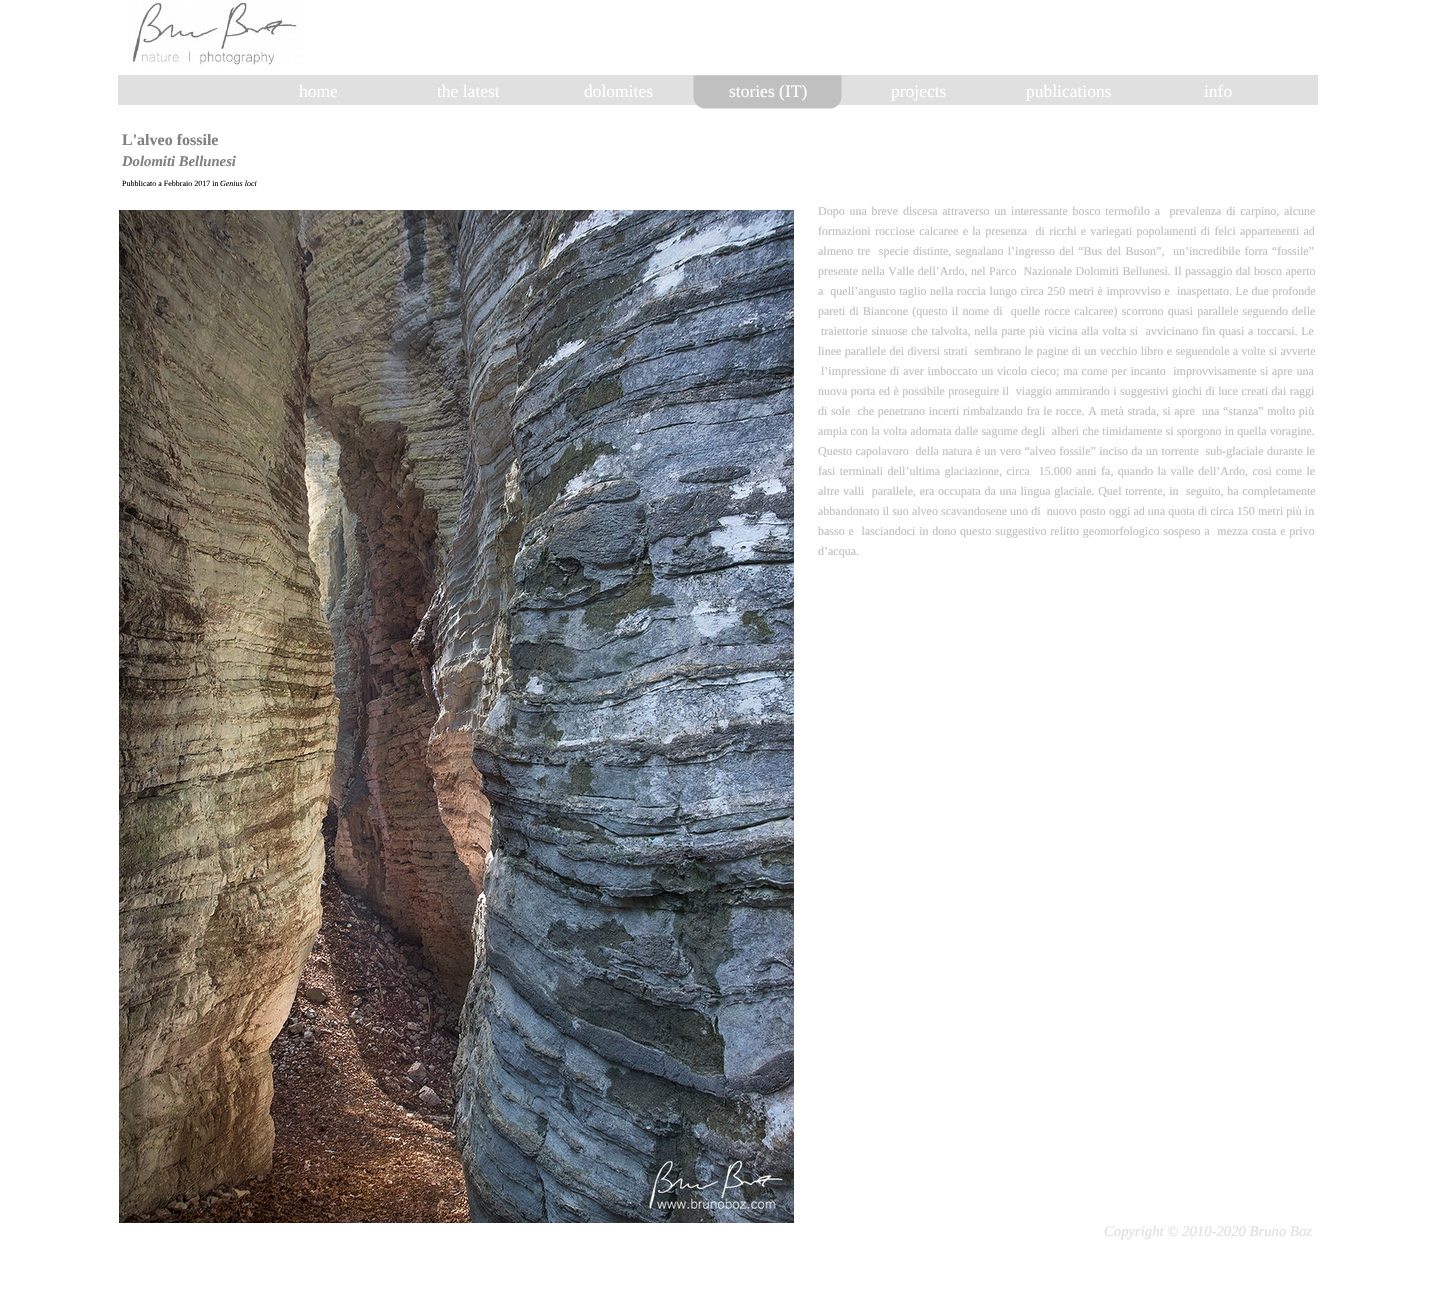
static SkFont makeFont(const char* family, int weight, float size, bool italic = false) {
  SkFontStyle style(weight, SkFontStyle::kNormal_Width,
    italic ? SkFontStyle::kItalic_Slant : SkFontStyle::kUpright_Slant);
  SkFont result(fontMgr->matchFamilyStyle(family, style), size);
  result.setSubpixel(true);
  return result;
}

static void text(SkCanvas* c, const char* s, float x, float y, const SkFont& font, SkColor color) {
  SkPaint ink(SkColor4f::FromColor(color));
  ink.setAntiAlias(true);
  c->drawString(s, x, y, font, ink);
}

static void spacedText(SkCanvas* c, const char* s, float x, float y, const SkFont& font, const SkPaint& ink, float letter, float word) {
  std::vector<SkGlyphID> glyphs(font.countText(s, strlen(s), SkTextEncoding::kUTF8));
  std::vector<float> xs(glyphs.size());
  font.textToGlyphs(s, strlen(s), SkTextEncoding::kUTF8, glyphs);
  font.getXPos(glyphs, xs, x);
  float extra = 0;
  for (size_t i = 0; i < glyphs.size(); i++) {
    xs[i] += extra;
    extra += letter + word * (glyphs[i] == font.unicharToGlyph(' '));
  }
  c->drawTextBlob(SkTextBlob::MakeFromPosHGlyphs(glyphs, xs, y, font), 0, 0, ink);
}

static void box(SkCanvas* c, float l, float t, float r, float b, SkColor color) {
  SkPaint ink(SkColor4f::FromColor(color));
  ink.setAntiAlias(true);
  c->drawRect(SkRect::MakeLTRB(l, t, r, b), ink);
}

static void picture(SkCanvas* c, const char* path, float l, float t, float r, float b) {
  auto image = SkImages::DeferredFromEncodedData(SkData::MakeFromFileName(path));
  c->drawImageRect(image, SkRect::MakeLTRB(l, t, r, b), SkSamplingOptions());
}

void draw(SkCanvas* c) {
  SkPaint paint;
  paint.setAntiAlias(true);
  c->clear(0xffffffff);
  picture(c, "img_01.png", 128, 2, 303, 65);
  box(c, 118, 75, 1318, 105, 0xffe0e0e0);
  SkFont face1 = makeFont("Liberation Serif", 400, 17.5f);
  text(c, "home", 299, 97, face1, 0xffffffff);
  text(c, "the latest", 437, 97, face1, 0xffffffff);
  text(c, "dolomites", 584, 97, face1, 0xffffffff);
  picture(c, "img_02.png", 693, 75, 842, 109);
  text(c, "stories (IT)", 729, 97, face1, 0xffffffff);
  text(c, "projects", 891, 97, face1, 0xffffffff);
  text(c, "publications", 1026, 97, face1, 0xffffffff);
  text(c, "info", 1204, 97, face1, 0xffffffff);
  SkFont face2 = makeFont("Liberation Serif", 700, 16);
  text(c, "L'alveo fossile", 122, 145, face2, 0xff808080);
  SkFont face3 = makeFont("Liberation Serif", 700, 14.7f, true);
  text(c, "Dolomiti Bellunesi", 122, 166, face3, 0xff808080);
  SkFont face4 = makeFont("Liberation Serif", 400, 8);
  text(c, "Pubblicato a Febbraio 2017 in", 122, 186, face4, 0xff000000);
  SkFont face5 = makeFont("Liberation Serif", 400, 8, true);
  text(c, "Genius loci", 220, 186, face5, 0xff000000);
  picture(c, "img_03.png", 119, 210, 794, 1223);
  SkFont face6 = makeFont("Liberation Serif", 400, 12);
  paint.setColor(0xffc0c0c0);
  spacedText(c, "Dopo una breve discesa attraverso un interessante bosco termofilo a  prevalenza di carpino, alcune", 818, 215, face6, paint, 0, 1.75f);
  spacedText(c, "formazioni rocciose calcaree e la presenza  di ricchi e variegati popolamenti di felci appartenenti ad", 818, 235, face6, paint, 0, 1.25f);
  spacedText(c, "almeno tre  specie distinte, segnalano l’ingresso del “Bus del Buson”,  un’incredibile forra “fossile”", 818, 255, face6, paint, 0, 1.25f);
  spacedText(c, "presente nella Valle dell’Ardo, nel Parco  Nazionale Dolomiti Bellunesi. Il passaggio dal bosco aperto", 818, 275, face6, paint, 0, 0.5f);
  spacedText(c, "a  quell’angusto taglio nella roccia lungo circa 250 metri è improvviso e  inaspettato. Le due profonde", 818, 295, face6, paint, 0, 0.5f);
  spacedText(c, "pareti di Biancone (questo il nome di  quelle rocce calcaree) scorrono quasi parallele seguendo delle", 818, 315, face6, paint, 0, 1.1f);
  spacedText(c, "traiettorie sinuose che talvolta, nella parte più vicina alla volta si  avvicinano fin quasi a toccarsi. Le", 821, 335, face6, paint, 0, 0.75f);
  spacedText(c, "linee parallele dei diversi strati  sembrano le pagine di un vecchio libro e seguendole a volte si avverte", 818, 355, face6, paint, 0, 0.4f);
  spacedText(c, "l’impressione di aver imboccato un vicolo cieco; ma come per incanto  improvvisamente si apre una", 821, 375, face6, paint, 0, 0.75f);
  spacedText(c, "nuova porta ed è possibile proseguire il  viaggio ammirando i suggestivi giochi di luce creati dai raggi", 818, 395, face6, paint, 0, 0.4f);
  spacedText(c, "di sole  che penetrano incerti rimbalzando fra le rocce. A metà strada, si apre  una “stanza” molto più", 818, 415, face6, paint, 0, 0.6f);
  spacedText(c, "ampia con la volta adornata dalle sagome degli  alberi che timidamente si sporgono in quella voragine.", 818, 435, face6, paint, 0, 0.25f);
  spacedText(c, "Questo capolavoro  della natura è un vero “alveo fossile” inciso da un torrente  sub-glaciale durante le", 818, 455, face6, paint, 0, 0.4f);
  spacedText(c, "fasi terminali dell’ultima glaciazione, circa  15.000 anni fa, quando la valle dell’Ardo, così come le", 818, 475, face6, paint, 0, 1.4f);
  spacedText(c, "altre valli  parallele, era occupata da una lingua glaciale. Quel torrente, in  seguito, ha completamente", 818, 495, face6, paint, 0, 0.7f);
  spacedText(c, "abbandonato il suo alveo scavandosene uno di  nuovo posto oggi ad una quota di circa 150 metri più in", 818, 515, face6, paint, 0, 0.1f);
  spacedText(c, "basso e  lasciandoci in dono questo suggestivo relitto geomorfologico sospeso a  mezza costa e privo", 818, 535, face6, paint, 0, 0.8f);
  text(c, "d’acqua.", 818, 555, face6, 0xffc0c0c0);
  SkFont face7 = makeFont("Liberation Serif", 400, 14.7f, true);
  text(c, "Copyright © 2010-2020 Bruno Boz", 1104, 1236, face7, 0xffe0e0e0);
}
